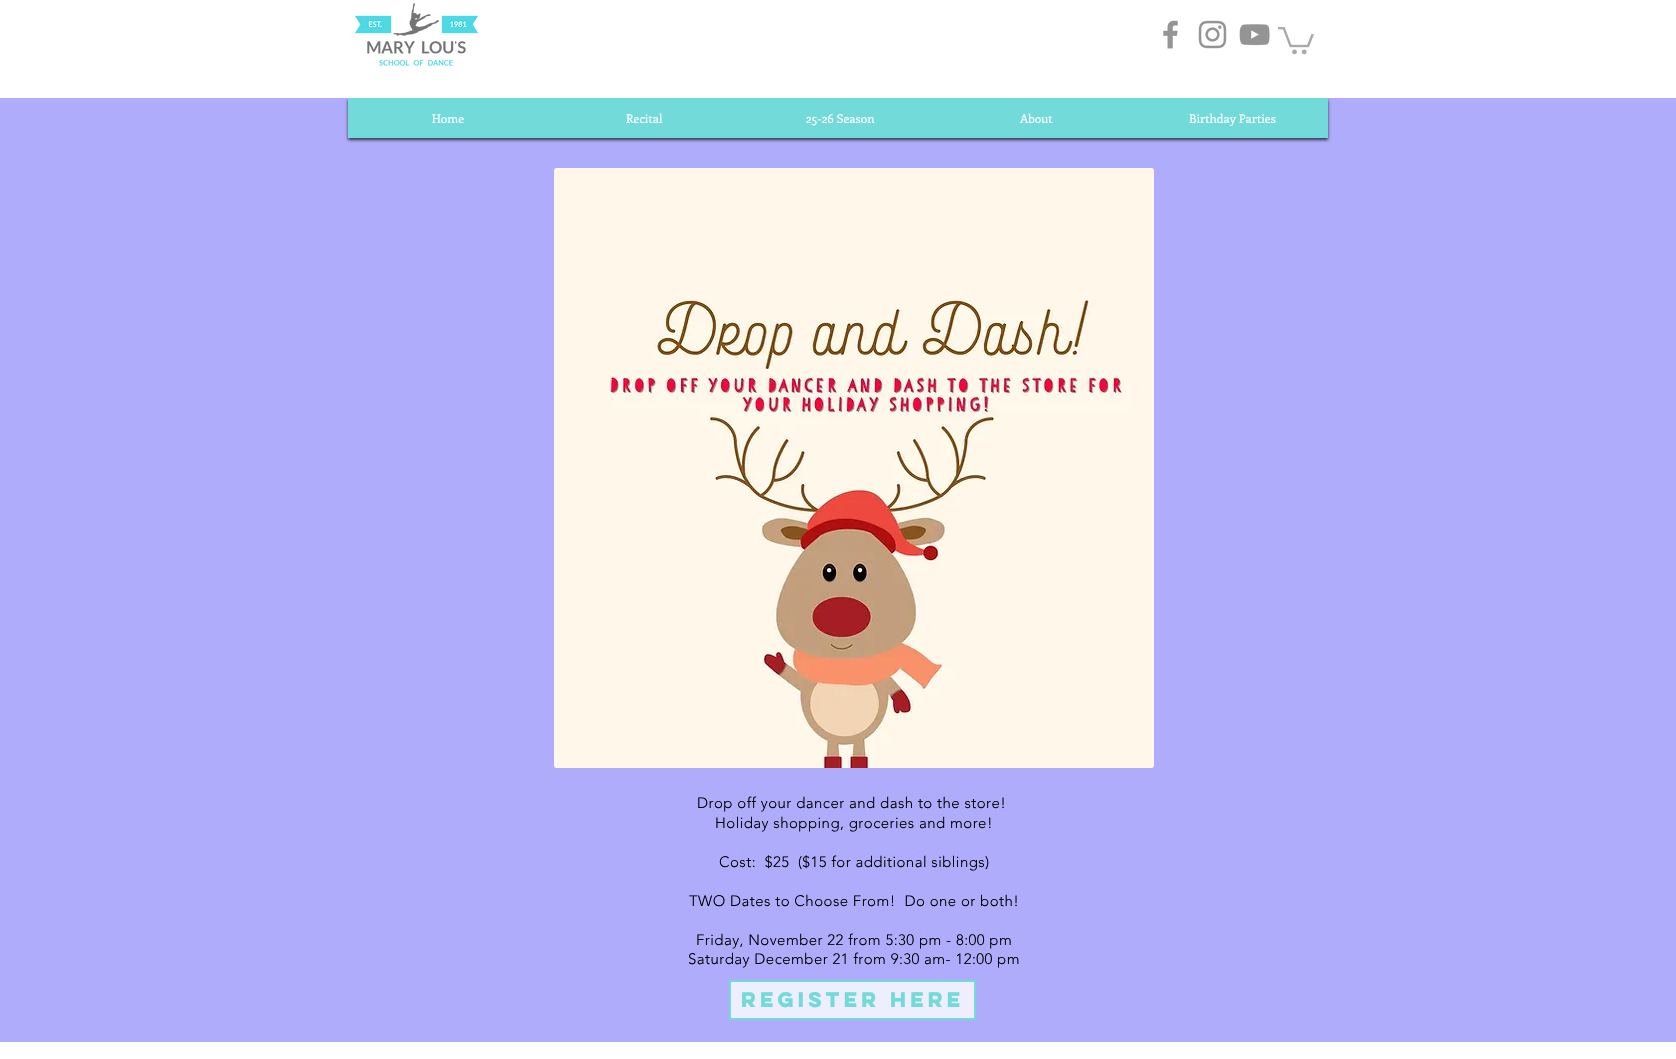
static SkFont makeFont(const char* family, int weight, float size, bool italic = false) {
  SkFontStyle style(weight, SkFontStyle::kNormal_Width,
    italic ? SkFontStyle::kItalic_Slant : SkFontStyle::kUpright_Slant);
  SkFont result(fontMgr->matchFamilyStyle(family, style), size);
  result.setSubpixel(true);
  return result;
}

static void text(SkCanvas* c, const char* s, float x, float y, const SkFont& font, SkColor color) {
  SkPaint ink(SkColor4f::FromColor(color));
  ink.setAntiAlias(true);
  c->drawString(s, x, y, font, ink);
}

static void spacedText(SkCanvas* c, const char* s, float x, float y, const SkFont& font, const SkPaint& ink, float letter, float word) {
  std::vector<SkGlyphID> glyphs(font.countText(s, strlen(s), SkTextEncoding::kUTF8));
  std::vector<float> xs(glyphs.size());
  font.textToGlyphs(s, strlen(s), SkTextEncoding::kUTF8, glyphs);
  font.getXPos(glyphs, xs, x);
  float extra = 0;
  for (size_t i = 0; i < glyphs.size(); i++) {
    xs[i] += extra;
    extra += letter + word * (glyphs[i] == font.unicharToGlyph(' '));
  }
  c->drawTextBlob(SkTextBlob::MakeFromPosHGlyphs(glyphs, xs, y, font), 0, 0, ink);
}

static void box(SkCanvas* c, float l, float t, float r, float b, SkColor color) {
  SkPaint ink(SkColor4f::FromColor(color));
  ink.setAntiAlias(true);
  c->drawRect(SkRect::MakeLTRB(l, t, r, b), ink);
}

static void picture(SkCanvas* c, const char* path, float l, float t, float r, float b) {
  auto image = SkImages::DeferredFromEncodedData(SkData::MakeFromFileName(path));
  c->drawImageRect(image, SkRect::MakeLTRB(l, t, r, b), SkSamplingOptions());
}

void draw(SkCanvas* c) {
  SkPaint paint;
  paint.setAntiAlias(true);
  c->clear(0xffafacfb);
  box(c, 0, 0, 1676, 98, 0xffffffff);
  picture(c, "img_01.png", 354, 3, 479, 66);
  picture(c, "img_02.png", 1163, 20, 1178, 49);
  picture(c, "img_03.png", 1198, 20, 1227, 49);
  picture(c, "img_04.png", 1239, 24, 1270, 46);
  picture(c, "img_05.png", 1278, 27, 1314, 55);
  paint.setColor(0xb3000000);
  paint.setMaskFilter(SkMaskFilter::MakeBlur(kNormal_SkBlurStyle, 1.5f));
  c->drawRect(SkRect::MakeLTRB(348, 100, 1328, 140), paint);
  paint.setMaskFilter(nullptr);
  box(c, 348, 98, 1328, 138, 0xff72dbda);
  SkFont face1 = makeFont("Enriqueta", 400, 12);
  text(c, "Home", 432, 123, face1, 0xffffffff);
  text(c, "Recital", 626, 123, face1, 0xffffffff);
  text(c, "25-26 Season", 806, 123, face1, 0xffffffff);
  text(c, "About", 1020, 123, face1, 0xffffffff);
  text(c, "Birthday Parties", 1189, 123, face1, 0xffffffff);
  picture(c, "img_06.png", 554, 168, 1154, 768);
  SkFont face2 = makeFont("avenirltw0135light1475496", 300, 15);
  paint.setColor(0xff000000);
  spacedText(c, "Drop off your dancer and dash to the store!", 697, 808, face2, paint, 0.45f, 0);
  spacedText(c, "Holiday shopping, groceries and more!", 715, 828, face2, paint, 0.45f, 0);
  spacedText(c, "Cost:  $25", 719, 867, face2, paint, 0.45f, 0);
  spacedText(c, "($15 for additional siblings)", 798, 867, face2, paint, 0.45f, 0);
  spacedText(c, "TWO Dates to Choose From!  Do one or both!", 689, 906, face2, paint, 0.45f, 0);
  spacedText(c, "Friday, November 22 from 5:30 pm - 8:00 pm", 696, 945, face2, paint, 0.45f, 0);
  spacedText(c, "Saturday December 21 from 9:30 am- 12:00 pm", 688, 964, face2, paint, 0.45f, 0);
  paint.setColor(0xffefeefe);
  c->drawRect(SkRect::MakeLTRB(730, 981, 975, 1019), paint);
  paint.setStyle(SkPaint::kStroke_Style);
  paint.setStrokeWidth(2);
  paint.setColor(0xff72dbda);
  c->drawRect(SkRect::MakeLTRB(730, 981, 975, 1019), paint);
  SkFont face3 = makeFont("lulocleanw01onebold", 700, 19);
  text(c, "REGISTER HERE", 741, 1007, face3, 0xff72dbda);
  box(c, 0, 1042, 1676, 1059, 0xffffffff);
}
